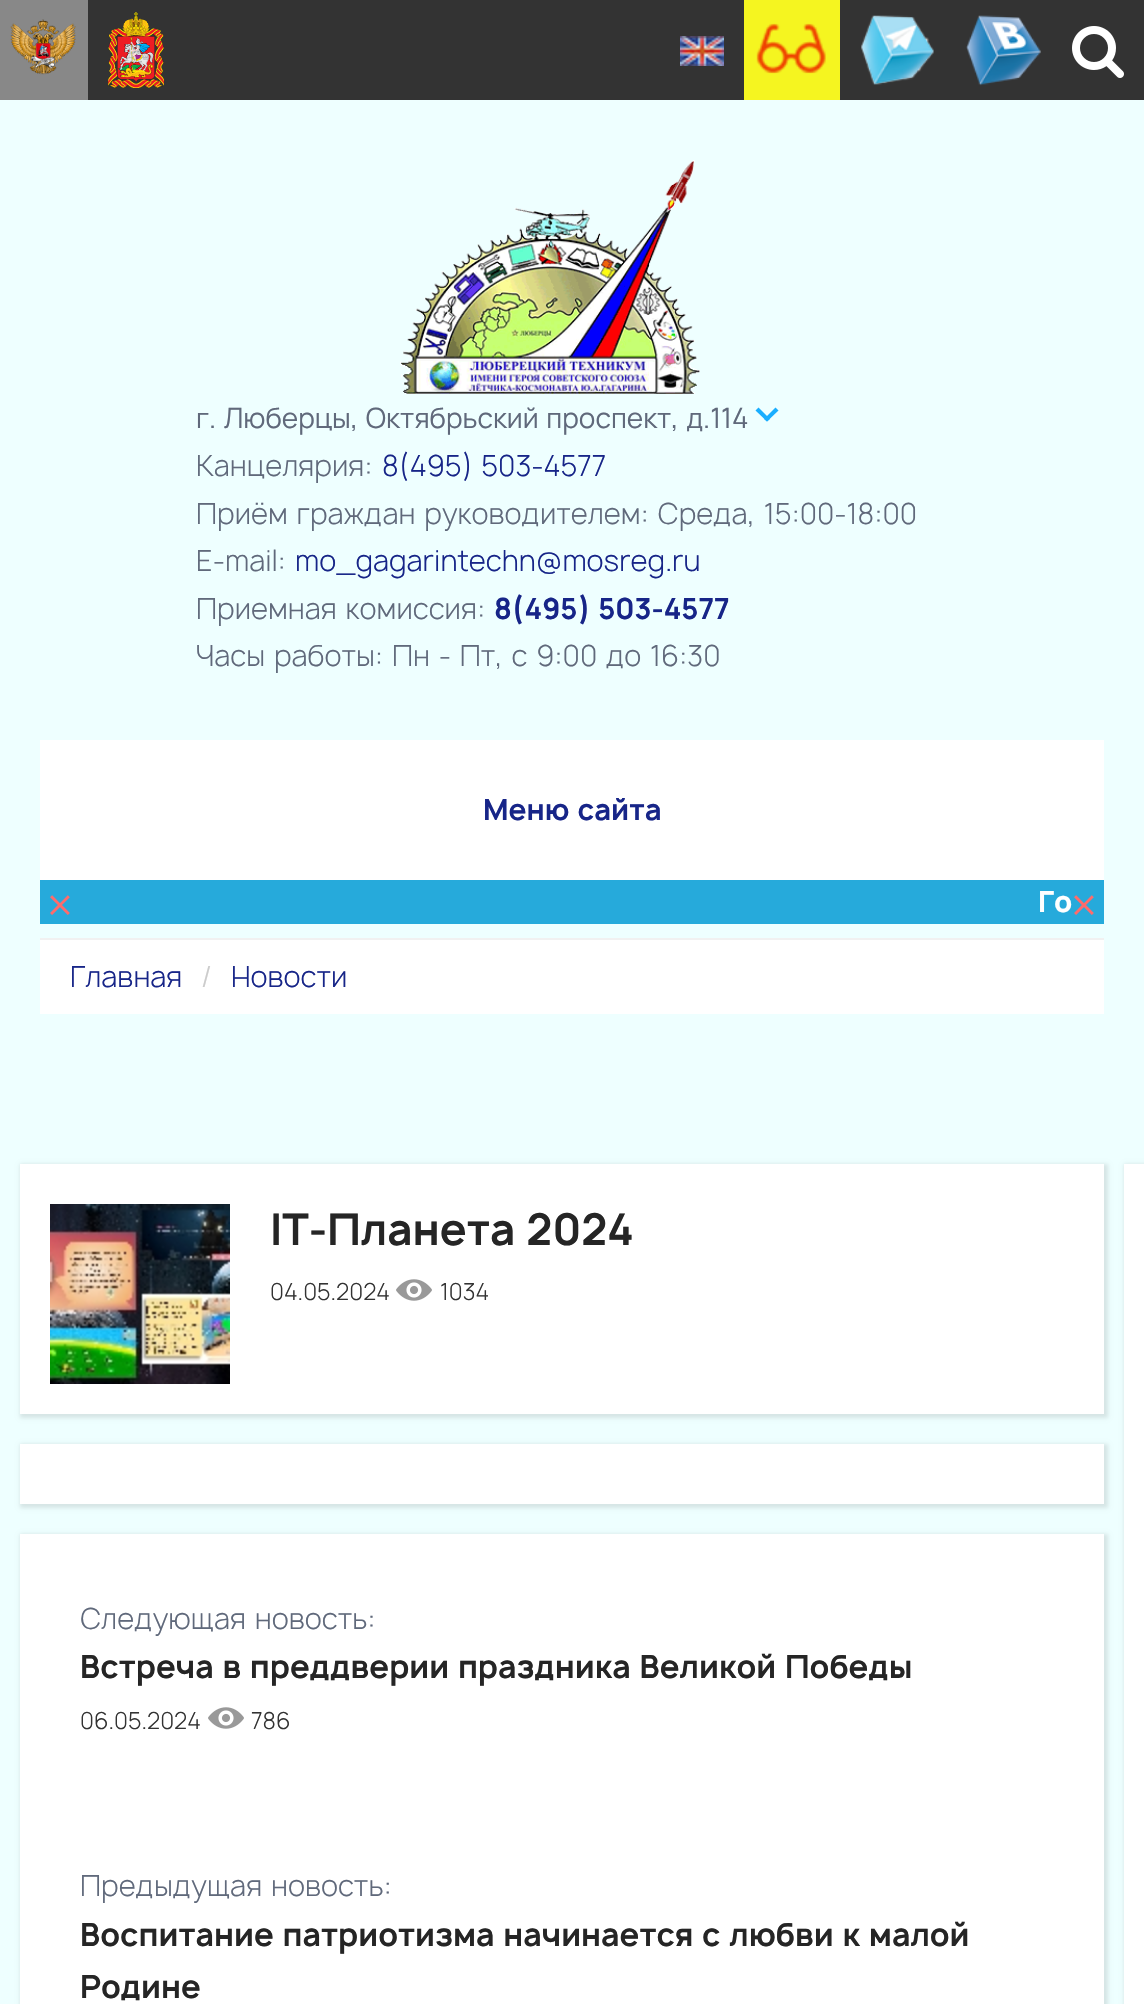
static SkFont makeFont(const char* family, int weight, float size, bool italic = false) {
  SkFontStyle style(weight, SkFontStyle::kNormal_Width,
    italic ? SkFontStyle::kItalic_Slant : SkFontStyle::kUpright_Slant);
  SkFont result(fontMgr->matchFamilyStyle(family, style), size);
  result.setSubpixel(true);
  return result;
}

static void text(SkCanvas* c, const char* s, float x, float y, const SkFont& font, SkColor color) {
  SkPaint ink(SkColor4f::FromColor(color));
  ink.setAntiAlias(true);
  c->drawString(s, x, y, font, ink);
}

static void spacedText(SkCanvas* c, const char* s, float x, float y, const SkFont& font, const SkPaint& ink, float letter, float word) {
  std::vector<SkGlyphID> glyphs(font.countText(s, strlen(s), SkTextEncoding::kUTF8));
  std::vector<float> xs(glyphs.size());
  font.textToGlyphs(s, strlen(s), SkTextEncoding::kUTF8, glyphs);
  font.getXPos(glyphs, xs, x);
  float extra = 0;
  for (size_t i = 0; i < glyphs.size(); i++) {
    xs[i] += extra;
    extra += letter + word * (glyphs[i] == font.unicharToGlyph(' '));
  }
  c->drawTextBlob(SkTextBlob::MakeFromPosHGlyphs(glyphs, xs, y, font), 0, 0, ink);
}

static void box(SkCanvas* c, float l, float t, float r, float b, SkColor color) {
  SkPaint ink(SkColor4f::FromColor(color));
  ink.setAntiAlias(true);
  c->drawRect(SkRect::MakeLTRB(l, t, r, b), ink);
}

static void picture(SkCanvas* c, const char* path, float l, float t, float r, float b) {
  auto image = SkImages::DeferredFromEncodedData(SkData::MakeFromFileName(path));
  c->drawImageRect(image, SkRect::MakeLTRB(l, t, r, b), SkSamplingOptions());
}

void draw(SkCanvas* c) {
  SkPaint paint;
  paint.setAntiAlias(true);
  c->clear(0xffeeffff);
  box(c, 88, 0, 1144, 100, 0xff333333);
  box(c, 0, 0, 88, 100, 0xff888888);
  picture(c, "img_01.png", 10, 19, 76, 75);
  picture(c, "img_02.png", 108, 12, 164, 88);
  picture(c, "img_03.png", 680, 36, 724, 66);
  box(c, 744, 0, 840, 100, 0xfff5f520);
  picture(c, "img_04.png", 756, 23, 826, 74);
  picture(c, "img_05.png", 861, 15, 934, 85);
  picture(c, "img_06.png", 966, 15, 1041, 86);
  picture(c, "img_07.png", 1072, 26, 1124, 78);
  picture(c, "img_08.png", 400, 160, 700, 394);
  SkFont face1 = makeFont("Manrope", 400, 28);
  paint.setColor(0xff60697b);
  spacedText(c, "г. Люберцы, Октябрьский проспект, д.114", 196, 428, face1, paint, 0, 2);
  paint.setColor(0xff19aeff);
  c->drawPath(SkPathBuilder().moveTo(775.5f, 407.5f).lineTo(778.5f, 410.5f).lineTo(767, 421.5f).lineTo(764, 419).close().detach(), paint);
  c->drawPath(SkPathBuilder().moveTo(758.5f, 407.5f).lineTo(770, 419).lineTo(767, 421.5f).lineTo(755.5f, 410.5f).close().detach(), paint);
  SkFont face2 = makeFont("Manrope", 300, 28);
  text(c, "Канцелярия:", 196, 476, face2, 0xff60697b);
  paint.setColor(0xff172588);
  spacedText(c, "8(495) 503-4577", 382, 476, face2, paint, 0, 2);
  paint.setColor(0xff60697b);
  spacedText(c, "Приём граждан руководителем: Среда, 15:00-18:00", 196, 524, face2, paint, 0, 2);
  text(c, "E-mail:", 196, 571, face2, 0xff60697b);
  text(c, "mo_gagarintechn@mosreg.ru", 295, 571, face2, 0xff172588);
  spacedText(c, "Приемная комиссия:", 196, 619, face2, paint, 0, 2);
  SkFont face3 = makeFont("Manrope", 700, 28);
  paint.setColor(0xff172588);
  spacedText(c, "8(495) 503-4577", 494, 619, face3, paint, 0, 2);
  paint.setColor(0xff60697b);
  spacedText(c, "Часы работы: Пн - Пт, с 9:00 до 16:30", 196, 666, face2, paint, 0, 2);
  box(c, 40, 740, 1104, 880, 0xffffffff);
  paint.setColor(0xff172588);
  spacedText(c, "Меню сайта", 483, 820, face3, paint, 0, 2);
  box(c, 40, 880, 1104, 924, 0xff26aadb);
  SkFont face4 = makeFont("Manrope", 300, 50);
  text(c, "×", 47, 920, face4, 0xffff6b6b);
  SkFont face5 = makeFont("Manrope", 800, 28);
  paint.setColor(0xffffffff);
  spacedText(c, "Го", 1038, 912, face5, paint, 0, 2);
  text(c, "×", 1071, 920, face4, 0xffff6b6b);
  box(c, 40, 940, 1104, 1014, 0xffffffff);
  box(c, 40, 938, 1104, 940, 0xfff1f1f1);
  text(c, "Главная", 70, 987, face2, 0xff172588);
  text(c, "/", 201, 987, face2, 0xffcccccc);
  text(c, "Новости", 231, 987, face2, 0xff172588);
  paint.setColor(0x1a000000);
  paint.setMaskFilter(SkMaskFilter::MakeBlur(kNormal_SkBlurStyle, 2));
  c->drawRect(SkRect::MakeLTRB(20, 1164, 1108, 1418), paint);
  paint.setMaskFilter(nullptr);
  box(c, 20, 1164, 1104, 1414, 0xffffffff);
  picture(c, "img_09.png", 50, 1204, 230, 1384);
  SkFont face6 = makeFont("Manrope", 700, 42);
  paint.setColor(0xff252525);
  spacedText(c, "IT-Планета 2024", 270, 1245, face6, paint, 0, 2);
  SkFont face7 = makeFont("Manrope", 300, 22.5f);
  text(c, "04.05.2024", 270, 1300, face7, 0xff333333);
  picture(c, "img_10.png", 396, 1279, 432, 1301);
  text(c, "1034", 440, 1300, face7, 0xff333333);
  paint.setColor(0x1a000000);
  paint.setMaskFilter(SkMaskFilter::MakeBlur(kNormal_SkBlurStyle, 2));
  c->drawRect(SkRect::MakeLTRB(20, 1444, 1108, 1508), paint);
  paint.setMaskFilter(nullptr);
  box(c, 20, 1444, 1104, 1504, 0xffffffff);
  paint.setMaskFilter(SkMaskFilter::MakeBlur(kNormal_SkBlurStyle, 2));
  c->drawRect(SkRect::MakeLTRB(20, 1534, 1108, 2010), paint);
  paint.setMaskFilter(nullptr);
  box(c, 20, 1534, 1104, 2004, 0xffffffff);
  paint.setColor(0xff60697b);
  spacedText(c, "Следующая новость:", 80, 1629, face2, paint, 0, 2);
  SkFont face8 = makeFont("Manrope", 700, 30.8f);
  paint.setColor(0xff252525);
  spacedText(c, "Встреча в преддверии праздника Великой Победы", 80, 1678, face8, paint, 0, 2);
  text(c, "06.05.2024", 80, 1729, face7, 0xff333333);
  picture(c, "img_10.png", 208, 1707, 244, 1729);
  text(c, "786", 251, 1729, face7, 0xff333333);
  paint.setColor(0xff60697b);
  spacedText(c, "Предыдущая новость:", 80, 1896, face2, paint, 0, 2);
  paint.setColor(0xff252525);
  spacedText(c, "Воспитание патриотизма начинается с любви к малой", 80, 1946, face8, paint, 0, 2);
  text(c, "Родине", 80, 1998, face8, 0xff252525);
  paint.setColor(0x1a000000);
  paint.setMaskFilter(SkMaskFilter::MakeBlur(kNormal_SkBlurStyle, 2));
  c->drawRect(SkRect::MakeLTRB(1124, 1164, 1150, 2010), paint);
  paint.setMaskFilter(nullptr);
  box(c, 1124, 1164, 1144, 2004, 0xffffffff);
}
